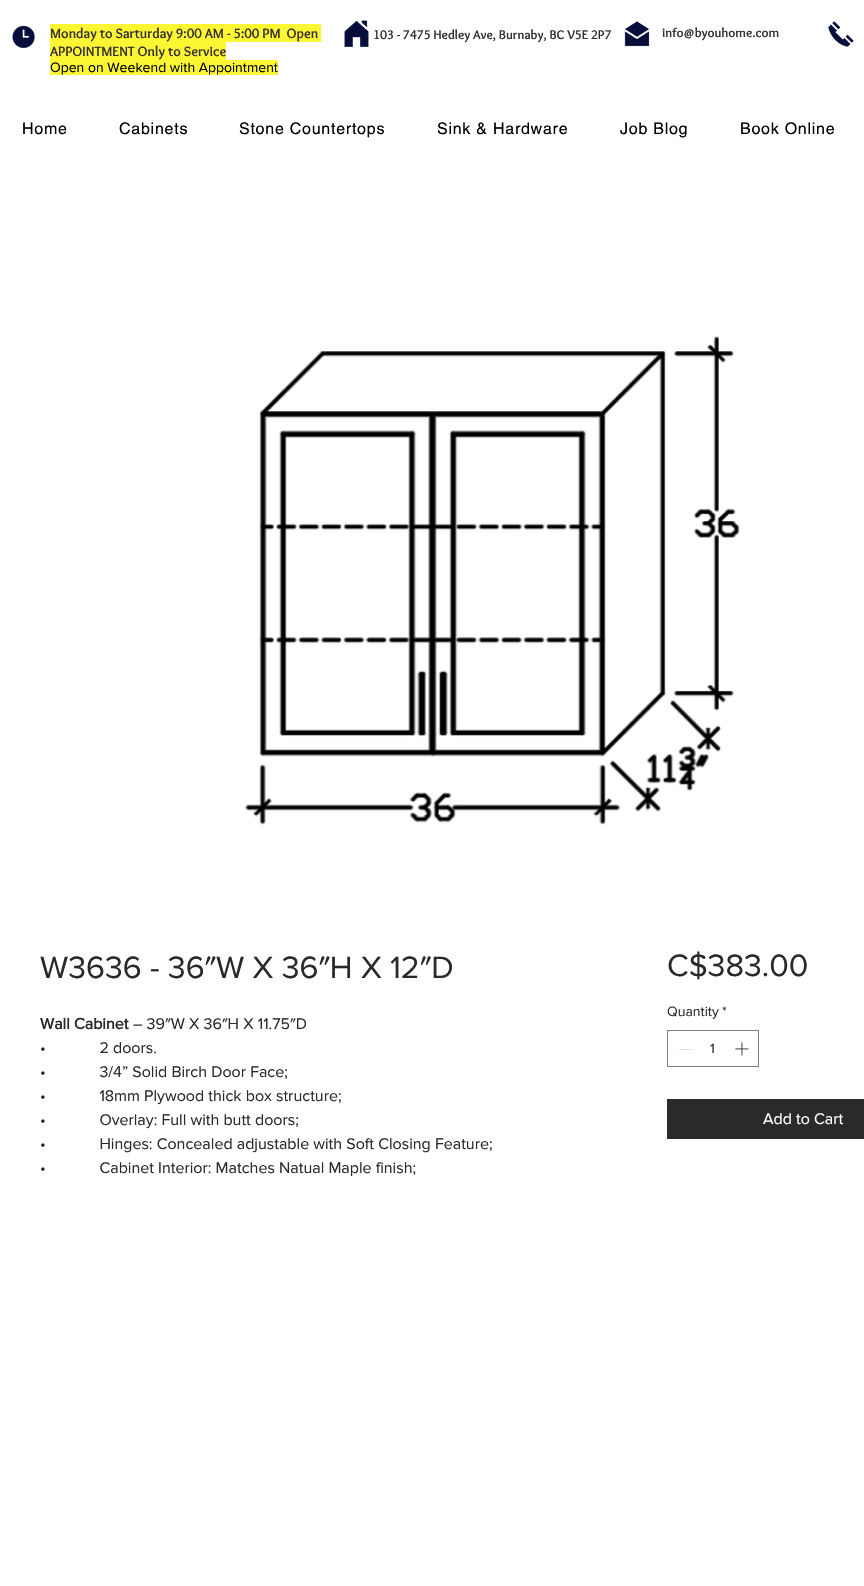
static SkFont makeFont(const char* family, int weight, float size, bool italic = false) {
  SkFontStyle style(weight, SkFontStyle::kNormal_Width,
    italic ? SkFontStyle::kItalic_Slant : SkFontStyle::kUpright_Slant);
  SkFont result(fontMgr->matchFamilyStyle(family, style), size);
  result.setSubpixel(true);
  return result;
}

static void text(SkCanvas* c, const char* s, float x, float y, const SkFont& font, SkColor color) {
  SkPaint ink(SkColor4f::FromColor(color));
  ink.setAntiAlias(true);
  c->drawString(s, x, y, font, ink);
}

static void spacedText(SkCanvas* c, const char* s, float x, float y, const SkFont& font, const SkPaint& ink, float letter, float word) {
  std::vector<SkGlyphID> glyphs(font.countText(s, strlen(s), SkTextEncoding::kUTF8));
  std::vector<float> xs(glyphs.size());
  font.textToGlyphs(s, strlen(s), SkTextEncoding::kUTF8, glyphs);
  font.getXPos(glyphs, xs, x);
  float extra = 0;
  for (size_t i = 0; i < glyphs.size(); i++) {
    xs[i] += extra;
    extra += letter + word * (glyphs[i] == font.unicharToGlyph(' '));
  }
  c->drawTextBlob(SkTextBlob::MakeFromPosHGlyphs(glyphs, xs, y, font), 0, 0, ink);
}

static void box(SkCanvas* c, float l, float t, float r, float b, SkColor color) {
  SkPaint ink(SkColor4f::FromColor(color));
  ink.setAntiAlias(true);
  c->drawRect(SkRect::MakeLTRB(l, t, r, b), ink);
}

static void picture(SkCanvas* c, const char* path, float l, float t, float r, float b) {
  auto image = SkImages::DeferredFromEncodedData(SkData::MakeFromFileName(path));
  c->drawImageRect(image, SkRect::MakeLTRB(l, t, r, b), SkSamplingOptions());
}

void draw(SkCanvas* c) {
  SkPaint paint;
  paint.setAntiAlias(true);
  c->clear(0xffffffff);
  picture(c, "img_01.png", 12, 25, 35, 49);
  box(c, 50, 24, 321, 42, 0xfffdf733);
  SkFont face1 = makeFont("Overlock", 700, 14);
  text(c, "Monday to Sarturday 9:00 AM - 5:00 PM  Open", 50, 38, face1, 0xff353131);
  box(c, 50, 42, 226, 60, 0xfffdf733);
  text(c, "APPOINTMENT Only to Service", 50, 56, face1, 0xff353131);
  box(c, 50, 60, 278, 75, 0xfffdf733);
  SkFont face2 = makeFont("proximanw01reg", 400, 14);
  text(c, "Open on Weekend with Appointment", 50, 72, face2, 0xff000000);
  picture(c, "img_02.png", 344, 20, 369, 47);
  SkFont face3 = makeFont("Overlock", 700, 13);
  text(c, "103 - 7475 Hedley Ave, Burnaby, BC V5E 2P7", 373, 39, face3, 0xff353131);
  picture(c, "img_03.png", 624, 21, 650, 47);
  text(c, "info@byouhome.com", 662, 37, face3, 0xff353131);
  picture(c, "img_04.png", 828, 21, 854, 47);
  SkFont face4 = makeFont("helvetica", 400, 16);
  paint.setColor(0xff000000);
  spacedText(c, "Home", 22, 134, face4, paint, 0.75f, 0);
  spacedText(c, "Cabinets", 119, 134, face4, paint, 0.75f, 0);
  spacedText(c, "Stone Countertops", 239, 134, face4, paint, 0.75f, 0);
  spacedText(c, "Sink & Hardware", 437, 134, face4, paint, 0.75f, 0);
  spacedText(c, "Job Blog", 620, 134, face4, paint, 0.75f, 0);
  spacedText(c, "Book Online", 740, 134, face4, paint, 0.75f, 0);
  picture(c, "img_05.png", 244, 336, 740, 825);
  SkFont face5 = makeFont("proximanw01reg", 400, 32);
  text(c, "W3636 - 36″W X 36″H X 12″D", 40, 978, face5, 0xff2a2a2a);
  SkFont face6 = makeFont("proximanw01reg", 700, 16);
  text(c, "Wall Cabinet", 40, 1029, face6, 0xff2a2a2a);
  SkFont face7 = makeFont("proximanw01reg", 400, 16);
  text(c, "– 39″W X 36″H X 11.75″D", 133, 1029, face7, 0xff2a2a2a);
  text(c, "•             2 doors.", 40, 1053, face7, 0xff2a2a2a);
  text(c, "•             3/4” Solid Birch Door Face;", 40, 1077, face7, 0xff2a2a2a);
  text(c, "•             18mm Plywood thick box structure;", 40, 1101, face7, 0xff2a2a2a);
  text(c, "•             Overlay: Full with butt doors;", 40, 1125, face7, 0xff2a2a2a);
  text(c, "•             Hinges: Concealed adjustable with Soft Closing Feature;", 40, 1149, face7, 0xff2a2a2a);
  text(c, "•             Cabinet Interior: Matches Natual Maple finish;", 40, 1173, face7, 0xff2a2a2a);
  text(c, "C$383.00", 667, 976, face5, 0xff2a2a2a);
  text(c, "Quantity", 667, 1016, face2, 0xff2a2a2a);
  text(c, "*", 722, 1016, face2, 0xff2a2a2a);
  paint.setStyle(SkPaint::kStroke_Style);
  paint.setStrokeWidth(1);
  paint.setColor(0xff7f7f7f);
  c->drawRect(SkRect::MakeLTRB(667.5f, 1030.5f, 758.5f, 1066.5f), paint);
  box(c, 679, 1049, 692, 1050, 0xffe3e3e3);
  text(c, "1", 710, 1053, face2, 0xff2a2a2a);
  picture(c, "img_06.png", 735, 1042, 749, 1056);
  box(c, 667, 1099, 864, 1139, 0xff2a2a2a);
  text(c, "Add to Cart", 763, 1124, face7, 0xffffffff);
}
